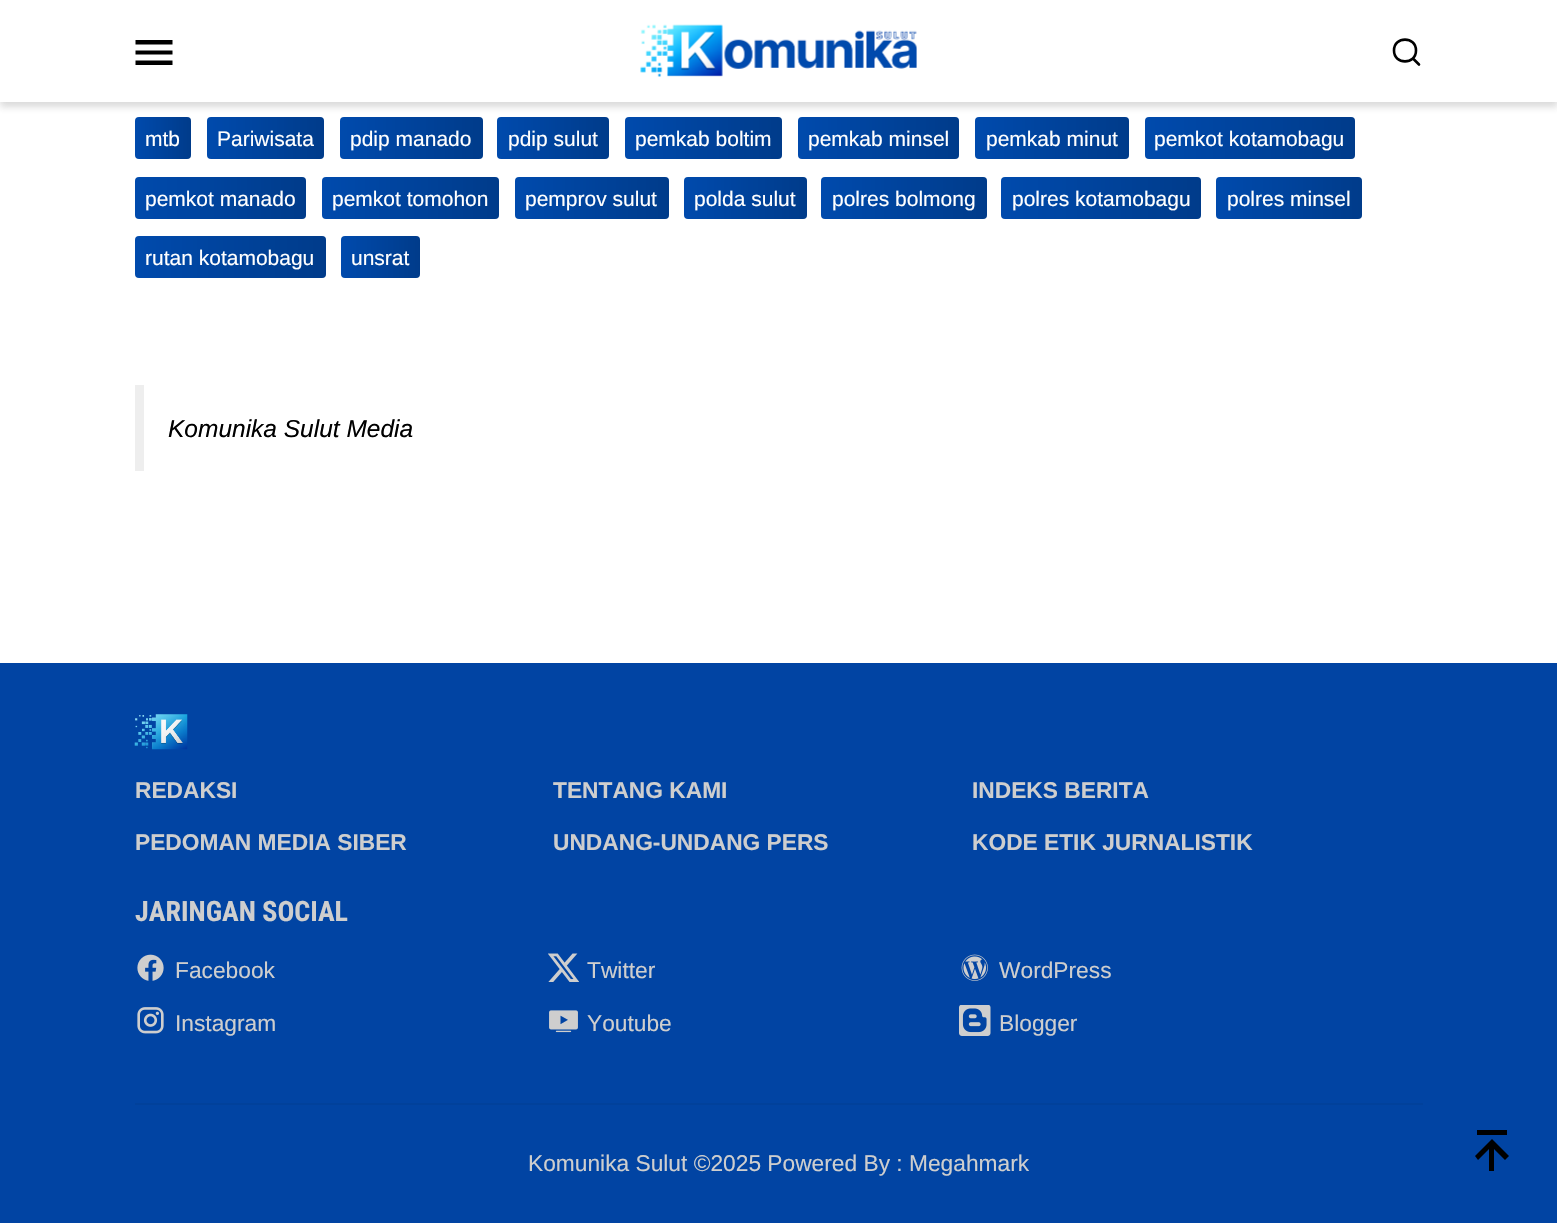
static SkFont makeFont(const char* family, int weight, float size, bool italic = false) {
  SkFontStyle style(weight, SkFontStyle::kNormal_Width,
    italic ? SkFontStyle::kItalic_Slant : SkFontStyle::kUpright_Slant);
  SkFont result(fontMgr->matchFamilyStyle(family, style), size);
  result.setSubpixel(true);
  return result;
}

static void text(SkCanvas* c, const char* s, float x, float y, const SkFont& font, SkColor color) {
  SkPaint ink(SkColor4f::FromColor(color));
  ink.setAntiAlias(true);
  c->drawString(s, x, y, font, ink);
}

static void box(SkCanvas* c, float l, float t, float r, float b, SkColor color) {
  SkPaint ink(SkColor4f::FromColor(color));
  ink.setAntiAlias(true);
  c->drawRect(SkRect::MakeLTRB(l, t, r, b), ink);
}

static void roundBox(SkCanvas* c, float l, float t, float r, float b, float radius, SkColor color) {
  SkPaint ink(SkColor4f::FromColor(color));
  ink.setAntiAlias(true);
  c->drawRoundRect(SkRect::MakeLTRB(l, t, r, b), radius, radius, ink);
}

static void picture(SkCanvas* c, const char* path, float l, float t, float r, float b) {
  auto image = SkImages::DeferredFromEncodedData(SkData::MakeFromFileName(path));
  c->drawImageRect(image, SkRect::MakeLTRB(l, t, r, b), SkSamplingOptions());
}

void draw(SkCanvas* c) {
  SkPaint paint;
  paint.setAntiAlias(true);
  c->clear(0xffffffff);
  roundBox(c, 135, 117, 191, 159, 4, 0xff004aad);
  {
    const SkColor colors[] = {0x00000000, 0x33000000};
    const float stops[] = {0, 1};
    const SkPoint ends[] = {{135, 138}, {191, 138}};
    paint.setShader(SkGradientShader::MakeLinear(ends, colors, stops, 2, SkTileMode::kClamp));
    paint.setAlpha(255);
  }
  c->drawRoundRect(SkRect::MakeLTRB(135, 117, 191, 159), 4, 4, paint);
  roundBox(c, 207, 117, 324, 159, 4, 0xff004aad);
  {
    const SkColor colors[] = {0x00000000, 0x33000000};
    const float stops[] = {0, 1};
    const SkPoint ends[] = {{207, 138}, {324, 138}};
    paint.setShader(SkGradientShader::MakeLinear(ends, colors, stops, 2, SkTileMode::kClamp));
    paint.setAlpha(255);
  }
  c->drawRoundRect(SkRect::MakeLTRB(207, 117, 324, 159), 4, 4, paint);
  roundBox(c, 340, 117, 483, 159, 4, 0xff004aad);
  {
    const SkColor colors[] = {0x00000000, 0x33000000};
    const float stops[] = {0, 1};
    const SkPoint ends[] = {{340, 138}, {483, 138}};
    paint.setShader(SkGradientShader::MakeLinear(ends, colors, stops, 2, SkTileMode::kClamp));
    paint.setAlpha(255);
  }
  c->drawRoundRect(SkRect::MakeLTRB(340, 117, 483, 159), 4, 4, paint);
  roundBox(c, 497, 117, 609, 159, 4, 0xff004aad);
  {
    const SkColor colors[] = {0x00000000, 0x33000000};
    const float stops[] = {0, 1};
    const SkPoint ends[] = {{497, 138}, {609, 138}};
    paint.setShader(SkGradientShader::MakeLinear(ends, colors, stops, 2, SkTileMode::kClamp));
    paint.setAlpha(255);
  }
  c->drawRoundRect(SkRect::MakeLTRB(497, 117, 609, 159), 4, 4, paint);
  roundBox(c, 625, 117, 782, 159, 4, 0xff004aad);
  {
    const SkColor colors[] = {0x00000000, 0x33000000};
    const float stops[] = {0, 1};
    const SkPoint ends[] = {{625, 138}, {782, 138}};
    paint.setShader(SkGradientShader::MakeLinear(ends, colors, stops, 2, SkTileMode::kClamp));
    paint.setAlpha(255);
  }
  c->drawRoundRect(SkRect::MakeLTRB(625, 117, 782, 159), 4, 4, paint);
  roundBox(c, 798, 117, 959, 159, 4, 0xff004aad);
  {
    const SkColor colors[] = {0x00000000, 0x33000000};
    const float stops[] = {0, 1};
    const SkPoint ends[] = {{798, 138}, {959, 138}};
    paint.setShader(SkGradientShader::MakeLinear(ends, colors, stops, 2, SkTileMode::kClamp));
    paint.setAlpha(255);
  }
  c->drawRoundRect(SkRect::MakeLTRB(798, 117, 959, 159), 4, 4, paint);
  roundBox(c, 975, 117, 1129, 159, 4, 0xff004aad);
  {
    const SkColor colors[] = {0x00000000, 0x33000000};
    const float stops[] = {0, 1};
    const SkPoint ends[] = {{975, 138}, {1129, 138}};
    paint.setShader(SkGradientShader::MakeLinear(ends, colors, stops, 2, SkTileMode::kClamp));
    paint.setAlpha(255);
  }
  c->drawRoundRect(SkRect::MakeLTRB(975, 117, 1129, 159), 4, 4, paint);
  roundBox(c, 1145, 117, 1355, 159, 4, 0xff004aad);
  {
    const SkColor colors[] = {0x00000000, 0x33000000};
    const float stops[] = {0, 1};
    const SkPoint ends[] = {{1145, 138}, {1355, 138}};
    paint.setShader(SkGradientShader::MakeLinear(ends, colors, stops, 2, SkTileMode::kClamp));
    paint.setAlpha(255);
  }
  c->drawRoundRect(SkRect::MakeLTRB(1145, 117, 1355, 159), 4, 4, paint);
  paint.setShader(nullptr);
  paint.setColor(0x2e343434);
  paint.setMaskFilter(SkMaskFilter::MakeBlur(kNormal_SkBlurStyle, 3.5f));
  c->drawRect(SkRect::MakeLTRB(0, 5, 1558, 107), paint);
  paint.setMaskFilter(nullptr);
  box(c, 0, 0, 1557, 102, 0xffffffff);
  paint.setColor(0xff000000);
  c->drawPath(SkPathBuilder().moveTo(135.5f, 40).lineTo(172.5f, 40).lineTo(172.5f, 44.5f).lineTo(135.5f, 44.5f).lineTo(135.5f, 40).moveTo(135.5f, 50.5f).lineTo(172.5f, 50.5f).lineTo(172.5f, 54.5f).lineTo(135.5f, 54.5f).lineTo(135.5f, 50.5f).moveTo(135.5f, 60.5f).lineTo(172.5f, 60.5f).lineTo(172.5f, 65).lineTo(135.5f, 65).close().detach(), paint);
  picture(c, "img_01.png", 640, 24, 917, 77);
  paint.setStyle(SkPaint::kStroke_Style);
  paint.setStrokeWidth(2.6f);
  paint.setStrokeCap(SkPaint::kRound_Cap);
  c->drawPath(SkPathBuilder().moveTo(1419, 64.5f).lineTo(1413, 58.5f).moveTo(1416, 50.5f).cubicTo(1416, 65, 1394, 65, 1394, 50.5f).cubicTo(1394, 36, 1416, 36, 1416, 50.5f).close().detach(), paint);
  SkFont face1 = makeFont("Liberation Sans", 400, 21);
  text(c, "mtb", 145, 146, face1, 0xffffffff);
  text(c, "Pariwisata", 217, 146, face1, 0xffffffff);
  text(c, "pdip manado", 350, 146, face1, 0xffffffff);
  text(c, "pdip sulut", 508, 146, face1, 0xffffffff);
  text(c, "pemkab boltim", 635, 146, face1, 0xffffffff);
  text(c, "pemkab minsel", 808, 146, face1, 0xffffffff);
  text(c, "pemkab minut", 986, 146, face1, 0xffffffff);
  text(c, "pemkot kotamobagu", 1154, 146, face1, 0xffffffff);
  roundBox(c, 135, 177, 306, 219, 4, 0xff004aad);
  paint.setStyle(SkPaint::kFill_Style);
  {
    const SkColor colors[] = {0x00000000, 0x33000000};
    const float stops[] = {0, 1};
    const SkPoint ends[] = {{135, 198}, {306, 198}};
    paint.setShader(SkGradientShader::MakeLinear(ends, colors, stops, 2, SkTileMode::kClamp));
    paint.setAlpha(255);
  }
  c->drawRoundRect(SkRect::MakeLTRB(135, 177, 306, 219), 4, 4, paint);
  text(c, "pemkot manado", 145, 206, face1, 0xffffffff);
  roundBox(c, 322, 177, 499, 219, 4, 0xff004aad);
  {
    const SkColor colors[] = {0x00000000, 0x33000000};
    const float stops[] = {0, 1};
    const SkPoint ends[] = {{322, 198}, {499, 198}};
    paint.setShader(SkGradientShader::MakeLinear(ends, colors, stops, 2, SkTileMode::kClamp));
    paint.setAlpha(255);
  }
  c->drawRoundRect(SkRect::MakeLTRB(322, 177, 499, 219), 4, 4, paint);
  text(c, "pemkot tomohon", 332, 206, face1, 0xffffffff);
  roundBox(c, 515, 177, 669, 219, 4, 0xff004aad);
  {
    const SkColor colors[] = {0x00000000, 0x33000000};
    const float stops[] = {0, 1};
    const SkPoint ends[] = {{515, 198}, {669, 198}};
    paint.setShader(SkGradientShader::MakeLinear(ends, colors, stops, 2, SkTileMode::kClamp));
    paint.setAlpha(255);
  }
  c->drawRoundRect(SkRect::MakeLTRB(515, 177, 669, 219), 4, 4, paint);
  text(c, "pemprov sulut", 525, 206, face1, 0xffffffff);
  roundBox(c, 684, 177, 807, 219, 4, 0xff004aad);
  {
    const SkColor colors[] = {0x00000000, 0x33000000};
    const float stops[] = {0, 1};
    const SkPoint ends[] = {{684, 198}, {807, 198}};
    paint.setShader(SkGradientShader::MakeLinear(ends, colors, stops, 2, SkTileMode::kClamp));
    paint.setAlpha(255);
  }
  c->drawRoundRect(SkRect::MakeLTRB(684, 177, 807, 219), 4, 4, paint);
  text(c, "polda sulut", 694, 206, face1, 0xffffffff);
  roundBox(c, 821, 177, 987, 219, 4, 0xff004aad);
  {
    const SkColor colors[] = {0x00000000, 0x33000000};
    const float stops[] = {0, 1};
    const SkPoint ends[] = {{821, 198}, {987, 198}};
    paint.setShader(SkGradientShader::MakeLinear(ends, colors, stops, 2, SkTileMode::kClamp));
    paint.setAlpha(255);
  }
  c->drawRoundRect(SkRect::MakeLTRB(821, 177, 987, 219), 4, 4, paint);
  text(c, "polres bolmong", 832, 206, face1, 0xffffffff);
  roundBox(c, 1001, 177, 1201, 219, 4, 0xff004aad);
  {
    const SkColor colors[] = {0x00000000, 0x33000000};
    const float stops[] = {0, 1};
    const SkPoint ends[] = {{1001, 198}, {1201, 198}};
    paint.setShader(SkGradientShader::MakeLinear(ends, colors, stops, 2, SkTileMode::kClamp));
    paint.setAlpha(255);
  }
  c->drawRoundRect(SkRect::MakeLTRB(1001, 177, 1201, 219), 4, 4, paint);
  text(c, "polres kotamobagu", 1012, 206, face1, 0xffffffff);
  roundBox(c, 1216, 177, 1362, 219, 4, 0xff004aad);
  {
    const SkColor colors[] = {0x00000000, 0x33000000};
    const float stops[] = {0, 1};
    const SkPoint ends[] = {{1216, 198}, {1362, 198}};
    paint.setShader(SkGradientShader::MakeLinear(ends, colors, stops, 2, SkTileMode::kClamp));
    paint.setAlpha(255);
  }
  c->drawRoundRect(SkRect::MakeLTRB(1216, 177, 1362, 219), 4, 4, paint);
  text(c, "polres minsel", 1227, 206, face1, 0xffffffff);
  roundBox(c, 135, 236, 326, 278, 4, 0xff004aad);
  {
    const SkColor colors[] = {0x00000000, 0x33000000};
    const float stops[] = {0, 1};
    const SkPoint ends[] = {{135, 257}, {326, 257}};
    paint.setShader(SkGradientShader::MakeLinear(ends, colors, stops, 2, SkTileMode::kClamp));
    paint.setAlpha(255);
  }
  c->drawRoundRect(SkRect::MakeLTRB(135, 236, 326, 278), 4, 4, paint);
  text(c, "rutan kotamobagu", 145, 265, face1, 0xffffffff);
  roundBox(c, 341, 236, 420, 278, 4, 0xff004aad);
  {
    const SkColor colors[] = {0x00000000, 0x33000000};
    const float stops[] = {0, 1};
    const SkPoint ends[] = {{341, 257}, {420, 257}};
    paint.setShader(SkGradientShader::MakeLinear(ends, colors, stops, 2, SkTileMode::kClamp));
    paint.setAlpha(255);
  }
  c->drawRoundRect(SkRect::MakeLTRB(341, 236, 420, 278), 4, 4, paint);
  text(c, "unsrat", 351, 265, face1, 0xffffffff);
  box(c, 135, 385, 144, 471, 0xffeeeeee);
  SkFont face2 = makeFont("Liberation Sans", 400, 24.5f, true);
  text(c, "Komunika Sulut Media", 168, 437, face2, 0xff000000);
  box(c, 0, 663, 1557, 1223, 0xff0144a3);
  picture(c, "img_02.png", 134, 714, 188, 750);
  SkFont face3 = makeFont("Liberation Sans", 700, 22.75f);
  text(c, "REDAKSI", 135, 798, face3, 0xffcecece);
  text(c, "TENTANG KAMI", 553, 798, face3, 0xffcecece);
  text(c, "INDEKS BERITA", 972, 798, face3, 0xffcecece);
  text(c, "PEDOMAN MEDIA SIBER", 135, 850, face3, 0xffcecece);
  text(c, "UNDANG-UNDANG PERS", 553, 850, face3, 0xffcecece);
  text(c, "KODE ETIK JURNALISTIK", 972, 850, face3, 0xffcecece);
  SkFont face4 = makeFont("Roboto Condensed", 700, 28);
  text(c, "JARINGAN SOCIAL", 135, 921, face4, 0xffcecece);
  picture(c, "img_03.png", 137, 954, 164, 981);
  SkFont face5 = makeFont("Liberation Sans", 400, 22.75f);
  text(c, "Facebook", 175, 978, face5, 0xffcecece);
  picture(c, "img_04.png", 548, 953, 579, 982);
  text(c, "Twitter", 587, 978, face5, 0xffcecece);
  picture(c, "img_05.png", 961, 954, 988, 981);
  text(c, "WordPress", 999, 978, face5, 0xffcecece);
  picture(c, "img_06.png", 137, 1007, 164, 1034);
  text(c, "Instagram", 175, 1031, face5, 0xffcecece);
  picture(c, "img_07.png", 549, 1010, 578, 1033);
  text(c, "Youtube", 587, 1031, face5, 0xffcecece);
  picture(c, "img_08.png", 959, 1005, 991, 1036);
  text(c, "Blogger", 999, 1031, face5, 0xffcecece);
  box(c, 135, 1103, 1423, 1105, 0xff01419b);
  text(c, "Komunika Sulut ©2025 Powered By : Megahmark", 528, 1171, face5, 0xffcecece);
  paint.setShader(nullptr);
  paint.setColor(0xff000000);
  c->drawPath(SkPathBuilder().moveTo(1477, 1130).lineTo(1507, 1130).lineTo(1507, 1135).lineTo(1477, 1135).close().moveTo(1478, 1160).lineTo(1489, 1149).lineTo(1489, 1171).lineTo(1494, 1171).lineTo(1494, 1149).lineTo(1505, 1160).lineTo(1509, 1156).lineTo(1492, 1139).lineTo(1475, 1156).close().detach(), paint);
}
